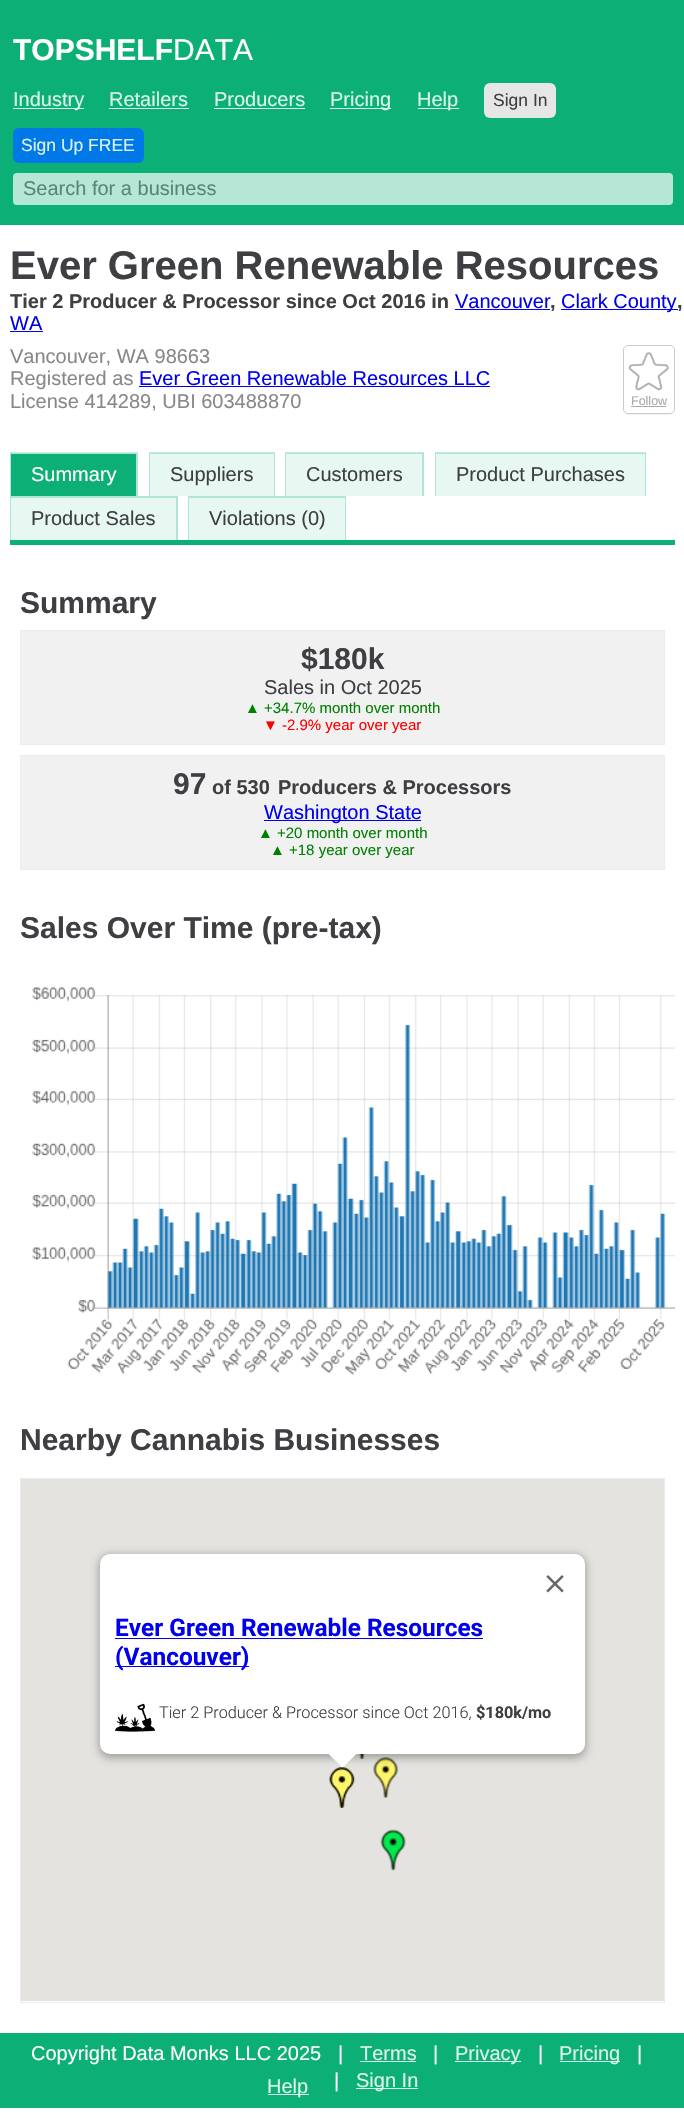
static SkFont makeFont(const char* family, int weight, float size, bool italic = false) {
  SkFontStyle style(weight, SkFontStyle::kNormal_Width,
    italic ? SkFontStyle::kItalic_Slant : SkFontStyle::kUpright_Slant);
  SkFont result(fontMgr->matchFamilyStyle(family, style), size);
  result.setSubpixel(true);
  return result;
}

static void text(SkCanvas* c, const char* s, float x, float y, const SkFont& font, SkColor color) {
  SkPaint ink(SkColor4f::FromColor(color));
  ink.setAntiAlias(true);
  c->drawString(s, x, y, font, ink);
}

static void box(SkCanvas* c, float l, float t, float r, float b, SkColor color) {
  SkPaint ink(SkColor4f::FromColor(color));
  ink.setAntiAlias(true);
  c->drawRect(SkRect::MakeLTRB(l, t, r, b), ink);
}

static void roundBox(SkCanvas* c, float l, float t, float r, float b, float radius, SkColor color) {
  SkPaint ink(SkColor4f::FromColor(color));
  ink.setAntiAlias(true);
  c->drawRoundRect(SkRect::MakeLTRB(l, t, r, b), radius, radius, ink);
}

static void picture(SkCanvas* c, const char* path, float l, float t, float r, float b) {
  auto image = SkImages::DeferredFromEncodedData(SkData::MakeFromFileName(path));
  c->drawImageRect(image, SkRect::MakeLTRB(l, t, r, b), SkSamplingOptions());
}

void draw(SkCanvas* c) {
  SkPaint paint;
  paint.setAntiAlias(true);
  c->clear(0xffffffff);
  box(c, 0, 0, 684, 225, 0xff0caf76);
  SkFont face1 = makeFont("Liberation Sans", 700, 30);
  text(c, "TOPSHELF", 13, 60, face1, 0xfffffdfe);
  SkFont face2 = makeFont("Liberation Sans", 400, 30);
  text(c, "DATA", 173, 60, face2, 0xfffffdfe);
  box(c, 13, 108, 84, 109, 0xffdbf3ea);
  SkFont face3 = makeFont("Liberation Sans", 400, 20);
  text(c, "Industry", 13, 106, face3, 0xffdbf3ea);
  text(c, "Retailers", 109, 106, face3, 0xffdbf3ea);
  box(c, 109, 108, 189, 109, 0xffdbf3ea);
  text(c, "Producers", 214, 106, face3, 0xffdbf3ea);
  box(c, 214, 108, 305, 109, 0xffdbf3ea);
  box(c, 330, 108, 391, 109, 0xffdbf3ea);
  text(c, "Pricing", 330, 106, face3, 0xffdbf3ea);
  box(c, 418, 108, 459, 109, 0xffdbf3ea);
  text(c, "Help", 417, 106, face3, 0xffdbf3ea);
  roundBox(c, 484, 83, 556, 118, 6, 0xffe6e6e6);
  SkFont face4 = makeFont("Liberation Sans", 400, 17.5f);
  text(c, "Sign In", 493, 106, face4, 0xff3d3f42);
  roundBox(c, 13, 128, 144, 163, 6, 0xff0078e7);
  text(c, "Sign Up FREE", 21, 151, face4, 0xffdbf3ea);
  roundBox(c, 13, 173, 673, 205, 4, 0xffb6e7d6);
  text(c, "Search for a business", 23, 195, face3, 0xff568675);
  SkFont face5 = makeFont("Liberation Sans", 700, 40);
  text(c, "Ever Green Renewable Resources", 10, 279, face5, 0xff3d3f42);
  SkFont face6 = makeFont("Liberation Sans", 700, 20);
  text(c, "Tier 2 Producer & Processor since Oct 2016 in", 10, 308, face6, 0xff3d3f42);
  text(c, "Vancouver", 455, 308, face3, 0xff0000ee);
  box(c, 455, 309, 550, 310, 0xff0000ee);
  text(c, ",", 550, 308, face6, 0xff3d3f42);
  box(c, 561, 309, 678, 310, 0xff0000ee);
  text(c, "Clark County", 561, 308, face3, 0xff0000ee);
  text(c, ",", 677, 308, face6, 0xff3d3f42);
  text(c, "WA", 10, 330, face3, 0xff0000ee);
  box(c, 10, 331, 43, 332, 0xff0000ee);
  text(c, "Vancouver, WA 98663", 10, 363, face3, 0xff888888);
  text(c, "Registered as", 10, 385, face3, 0xff888888);
  text(c, "Ever Green Renewable Resources LLC", 139, 385, face3, 0xff0000ee);
  box(c, 139, 386, 490, 387, 0xff0000ee);
  text(c, "License 414289, UBI 603488870", 10, 408, face3, 0xff888888);
  c->save();
  c->clipPath(SkPathBuilder(SkPathFillType::kEvenOdd).moveTo(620, 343).lineTo(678, 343).lineTo(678, 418).lineTo(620, 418).close().moveTo(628, 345).lineTo(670, 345).cubicTo(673, 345, 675, 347, 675, 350).lineTo(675, 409).cubicTo(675, 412, 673, 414, 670, 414).lineTo(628, 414).cubicTo(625, 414, 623, 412, 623, 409).lineTo(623, 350).cubicTo(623, 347, 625, 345, 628, 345).close().detach(), true);
  paint.setColor(0x0d000000);
  paint.setMaskFilter(SkMaskFilter::MakeBlur(kNormal_SkBlurStyle, 0.5f));
  c->drawRoundRect(SkRect::MakeLTRB(623, 346, 675, 415), 5, 5, paint);
  paint.setMaskFilter(nullptr);
  c->restore();
  paint.setStyle(SkPaint::kStroke_Style);
  paint.setStrokeWidth(1);
  paint.setColor(0xffcccccc);
  c->drawRoundRect(SkRect::MakeLTRB(623.5f, 345.5f, 674.5f, 413.5f), 4.5f, 4.5f, paint);
  picture(c, "img_01.png", 628, 352, 669, 391);
  SkFont face7 = makeFont("Liberation Sans", 400, 12.5f);
  text(c, "Follow", 631, 405, face7, 0xffaaaaaa);
  box(c, 631, 406, 666, 407, 0xffaaaaaa);
  box(c, 10, 540, 675, 545, 0xff0caf76);
  box(c, 10, 453, 138, 496, 0xffe7f7f1);
  paint.setStyle(SkPaint::kFill_Style);
  paint.setColor(0x400caf76);
  c->drawPath(SkPathBuilder().moveTo(10, 452).lineTo(138, 452).lineTo(136, 454).lineTo(11, 454).close().detach(), paint);
  c->drawPath(SkPathBuilder().moveTo(138, 452).lineTo(138, 496).lineTo(136, 496).lineTo(136, 454).close().detach(), paint);
  c->drawPath(SkPathBuilder().moveTo(10, 496).lineTo(10, 452).lineTo(11, 454).lineTo(11, 496).close().detach(), paint);
  box(c, 11, 454, 136, 496, 0xff0caf76);
  text(c, "Summary", 31, 481, face3, 0xfffffdfe);
  box(c, 149, 453, 275, 496, 0xffe7f7f1);
  c->drawPath(SkPathBuilder().moveTo(149, 452).lineTo(275, 452).lineTo(274, 454).lineTo(150, 454).close().detach(), paint);
  c->drawPath(SkPathBuilder().moveTo(275, 452).lineTo(275, 496).lineTo(274, 496).lineTo(274, 454).close().detach(), paint);
  c->drawPath(SkPathBuilder().moveTo(149, 496).lineTo(149, 452).lineTo(150, 454).lineTo(150, 496).close().detach(), paint);
  text(c, "Suppliers", 170, 481, face3, 0xff3d3f42);
  box(c, 285, 453, 424, 496, 0xffe7f7f1);
  c->drawPath(SkPathBuilder().moveTo(285, 452).lineTo(424, 452).lineTo(422, 454).lineTo(286, 454).close().detach(), paint);
  c->drawPath(SkPathBuilder().moveTo(424, 452).lineTo(424, 496).lineTo(422, 496).lineTo(422, 454).close().detach(), paint);
  c->drawPath(SkPathBuilder().moveTo(285, 496).lineTo(285, 452).lineTo(286, 454).lineTo(286, 496).close().detach(), paint);
  text(c, "Customers", 306, 481, face3, 0xff3d3f42);
  box(c, 435, 453, 646, 496, 0xffe7f7f1);
  c->drawPath(SkPathBuilder().moveTo(435, 452).lineTo(646, 452).lineTo(645, 454).lineTo(436, 454).close().detach(), paint);
  c->drawPath(SkPathBuilder().moveTo(646, 452).lineTo(646, 496).lineTo(645, 496).lineTo(645, 454).close().detach(), paint);
  c->drawPath(SkPathBuilder().moveTo(435, 496).lineTo(435, 452).lineTo(436, 454).lineTo(436, 496).close().detach(), paint);
  text(c, "Product Purchases", 456, 481, face3, 0xff3d3f42);
  box(c, 10, 496, 178, 540, 0xffe7f7f1);
  paint.setColor(0xffb0e5d2);
  c->drawPath(SkPathBuilder().moveTo(10, 496).lineTo(178, 496).lineTo(176, 498).lineTo(11, 498).close().detach(), paint);
  paint.setColor(0x400caf76);
  c->drawPath(SkPathBuilder().moveTo(178, 496).lineTo(178, 540).lineTo(176, 540).lineTo(176, 498).close().detach(), paint);
  c->drawPath(SkPathBuilder().moveTo(10, 540).lineTo(10, 496).lineTo(11, 498).lineTo(11, 540).close().detach(), paint);
  text(c, "Product Sales", 31, 525, face3, 0xff3d3f42);
  box(c, 188, 496, 346, 540, 0xffe7f7f1);
  paint.setColor(0xffb0e5d2);
  c->drawPath(SkPathBuilder().moveTo(188, 496).lineTo(346, 496).lineTo(345, 498).lineTo(189, 498).close().detach(), paint);
  paint.setColor(0x400caf76);
  c->drawPath(SkPathBuilder().moveTo(346, 496).lineTo(346, 540).lineTo(345, 540).lineTo(345, 498).close().detach(), paint);
  c->drawPath(SkPathBuilder().moveTo(188, 540).lineTo(188, 496).lineTo(189, 498).lineTo(189, 540).close().detach(), paint);
  text(c, "Violations (0)", 209, 525, face3, 0xff3d3f42);
  text(c, "Summary", 20, 613, face1, 0xff3d3f42);
  paint.setColor(0xfff1f1f1);
  c->drawRect(SkRect::MakeLTRB(20.5f, 630.5f, 664.5f, 744.5f), paint);
  paint.setStyle(SkPaint::kStroke_Style);
  paint.setColor(0xffececec);
  c->drawRect(SkRect::MakeLTRB(20.5f, 630.5f, 664.5f, 744.5f), paint);
  text(c, "$180k", 301, 669, face1, 0xff3d3f42);
  text(c, "Sales in Oct 2025", 264, 694, face3, 0xff3d3f42);
  SkFont face8 = makeFont("Liberation Sans", 400, 15);
  text(c, "▲ +34.7% month over month", 245, 713, face8, 0xff008000);
  text(c, "▼ -2.9% year over year", 263, 730, face8, 0xffff0000);
  paint.setStyle(SkPaint::kFill_Style);
  paint.setColor(0xfff1f1f1);
  c->drawRect(SkRect::MakeLTRB(20.5f, 755.5f, 664.5f, 869.5f), paint);
  paint.setStyle(SkPaint::kStroke_Style);
  paint.setColor(0xffececec);
  c->drawRect(SkRect::MakeLTRB(20.5f, 755.5f, 664.5f, 869.5f), paint);
  text(c, "97", 173, 794, face1, 0xff3d3f42);
  text(c, "of 530", 212, 794, face6, 0xff3d3f42);
  text(c, "Producers & Processors", 278, 794, face6, 0xff3d3f42);
  box(c, 264, 820, 421, 821, 0xff0000ee);
  text(c, "Washington State", 264, 819, face3, 0xff0000ee);
  text(c, "▲ +20 month over month", 258, 838, face8, 0xff008000);
  text(c, "▲ +18 year over year", 270, 855, face8, 0xff008000);
  text(c, "Sales Over Time (pre-tax)", 20, 938, face1, 0xff3d3f42);
  picture(c, "img_02.png", 32, 987, 675, 1375);
  text(c, "Nearby Cannabis Businesses", 20, 1450, face1, 0xff3d3f42);
  c->drawRect(SkRect::MakeLTRB(20.5f, 1478.5f, 664.5f, 2002.5f), paint);
  box(c, 21, 1479, 664, 2001, 0xffe5e3df);
  picture(c, "img_05.png", 359, 1754, 365, 1759);
  picture(c, "img_06.png", 329, 1767, 355, 1808);
  picture(c, "img_07.png", 373, 1757, 399, 1798);
  picture(c, "img_08.png", 329, 1767, 355, 1808);
  picture(c, "img_09.png", 329, 1767, 354, 1808);
  paint.setStyle(SkPaint::kFill_Style);
  paint.setColor(0x4d000000);
  paint.setMaskFilter(SkMaskFilter::MakeBlur(kNormal_SkBlurStyle, 4.5f));
  c->drawRoundRect(SkRect::MakeLTRB(99, 1555, 586, 1758), 11, 11, paint);
  paint.setMaskFilter(nullptr);
  roundBox(c, 100, 1554, 585, 1754, 10, 0xffffffff);
  picture(c, "img_03.png", 546, 1575, 564, 1593);
  SkFont face9 = makeFont("Roboto", 700, 24.4f);
  text(c, "Ever Green Renewable Resources", 115, 1636, face9, 0xff0000ee);
  box(c, 115, 1638, 483, 1639, 0xff0000ee);
  box(c, 115, 1666, 249, 1667, 0xff0000ee);
  text(c, "(Vancouver)", 115, 1665, face9, 0xff0000ee);
  picture(c, "img_04.png", 115, 1703, 155, 1732);
  SkFont face10 = makeFont("Roboto", 300, 16.25f);
  text(c, "Tier 2 Producer & Processor since Oct 2016,", 159, 1718, face10, 0xff3d3f42);
  SkFont face11 = makeFont("Roboto", 700, 16.25f);
  text(c, "$180k/mo", 476, 1718, face11, 0xff3d3f42);
  paint.setColor(0xffffffff);
  c->drawPath(SkPathBuilder().moveTo(328, 1753).lineTo(328, 1753.5f).lineTo(342.5f, 1767.5f).lineTo(357.5f, 1753).close().detach(), paint);
  picture(c, "img_10.png", 380, 1829, 406, 1871);
  box(c, 0, 2033, 684, 2108, 0xff0caf76);
  text(c, "Copyright Data Monks LLC 2025", 31, 2060, face3, 0xfffffdfe);
  text(c, "|", 338, 2060, face3, 0xfffffdfe);
  text(c, "Terms", 360, 2060, face3, 0xffdbf3ea);
  box(c, 360, 2061, 416, 2062, 0xffdbf3ea);
  text(c, "|", 433, 2060, face3, 0xfffffdfe);
  box(c, 455, 2061, 521, 2062, 0xffdbf3ea);
  text(c, "Privacy", 455, 2060, face3, 0xffdbf3ea);
  text(c, "|", 538, 2060, face3, 0xfffffdfe);
  box(c, 560, 2061, 620, 2062, 0xffdbf3ea);
  text(c, "Pricing", 559, 2060, face3, 0xffdbf3ea);
  text(c, "|", 637, 2060, face3, 0xfffffdfe);
  box(c, 268, 2094, 309, 2095, 0xffdbf3ea);
  text(c, "Help", 267, 2093, face3, 0xffdbf3ea);
  text(c, "|", 334, 2087, face3, 0xfffffdfe);
  box(c, 356, 2088, 418, 2089, 0xffdbf3ea);
  text(c, "Sign In", 356, 2087, face3, 0xffdbf3ea);
}
